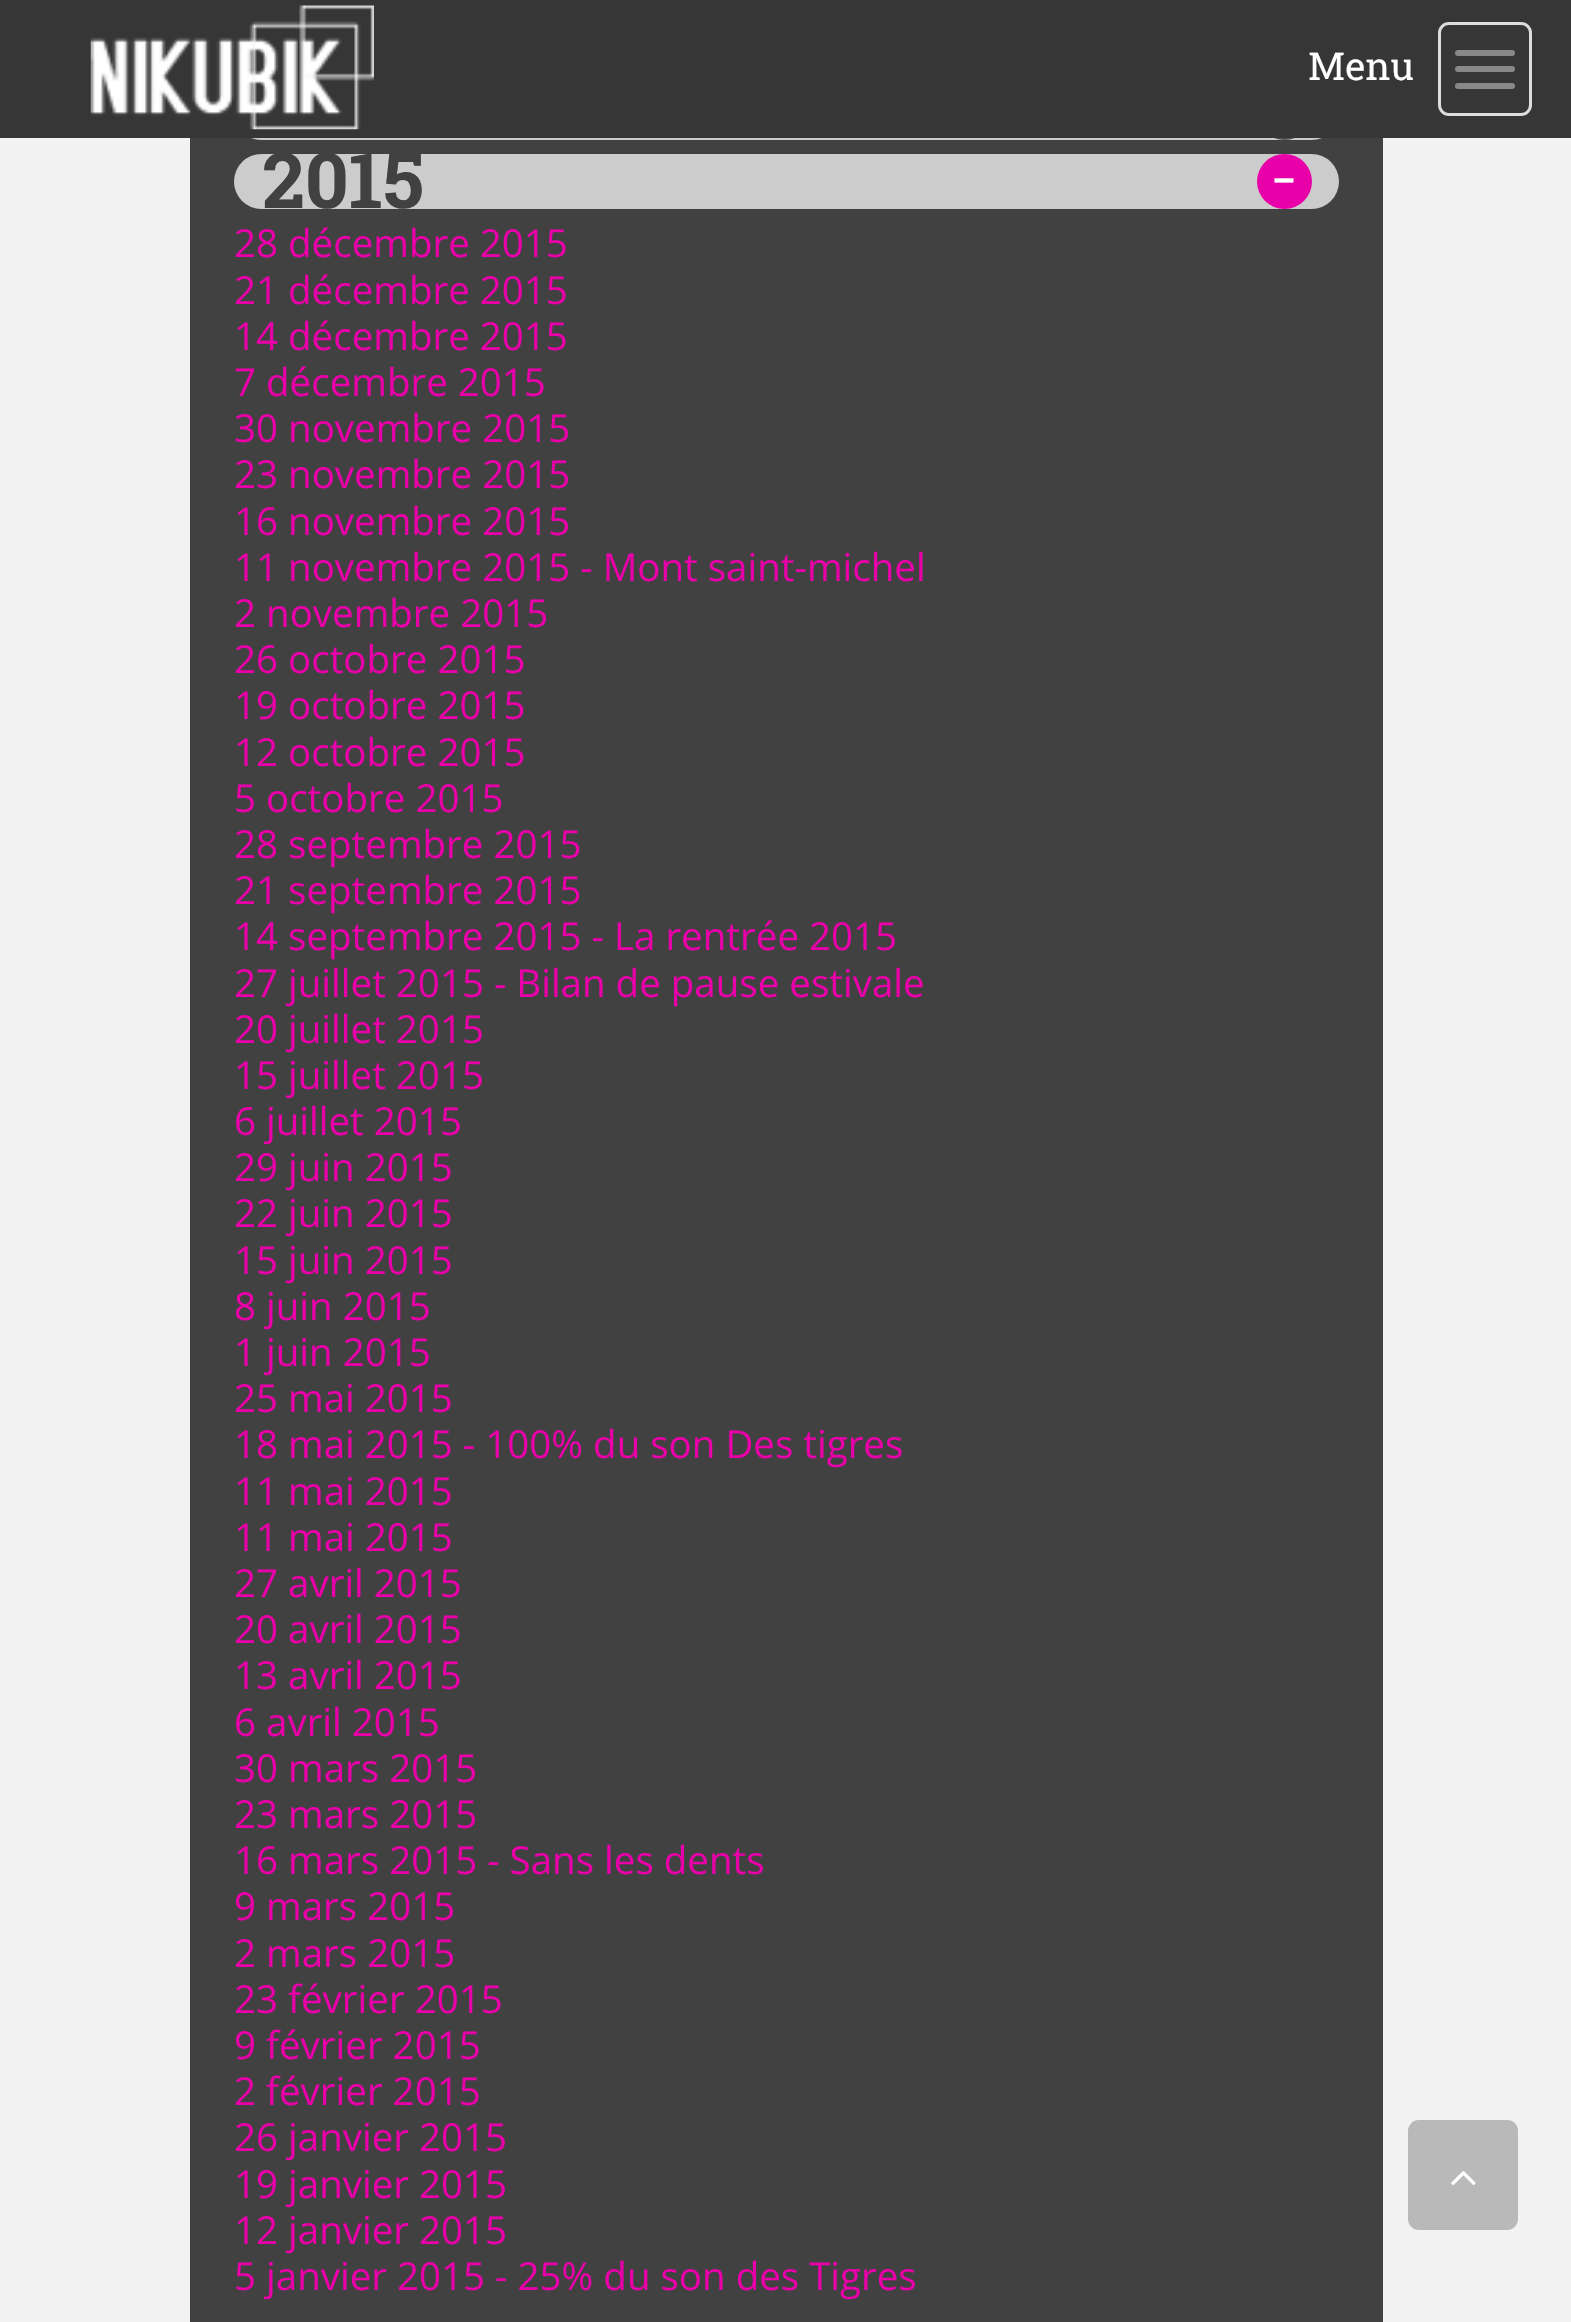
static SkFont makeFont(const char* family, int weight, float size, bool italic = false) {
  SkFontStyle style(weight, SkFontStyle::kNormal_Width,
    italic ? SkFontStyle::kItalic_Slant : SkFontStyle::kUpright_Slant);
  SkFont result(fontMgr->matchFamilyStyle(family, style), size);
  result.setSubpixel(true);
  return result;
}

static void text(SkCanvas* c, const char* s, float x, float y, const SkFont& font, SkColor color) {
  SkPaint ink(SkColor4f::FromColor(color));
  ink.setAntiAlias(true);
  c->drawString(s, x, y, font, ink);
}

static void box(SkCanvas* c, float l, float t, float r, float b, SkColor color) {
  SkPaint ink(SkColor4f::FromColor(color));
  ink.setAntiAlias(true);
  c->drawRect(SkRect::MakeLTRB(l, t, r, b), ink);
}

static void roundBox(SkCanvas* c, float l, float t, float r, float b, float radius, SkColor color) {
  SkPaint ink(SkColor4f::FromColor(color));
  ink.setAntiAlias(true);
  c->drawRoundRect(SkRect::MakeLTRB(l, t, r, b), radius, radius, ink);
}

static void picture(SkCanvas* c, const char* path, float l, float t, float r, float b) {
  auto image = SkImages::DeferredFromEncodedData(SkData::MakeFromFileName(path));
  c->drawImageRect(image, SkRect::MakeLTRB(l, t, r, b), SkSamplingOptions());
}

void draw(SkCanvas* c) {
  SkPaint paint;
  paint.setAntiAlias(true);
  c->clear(0xfff2f2f2);
  box(c, 190, 138, 1383, 2322, 0xff414141);
  roundBox(c, 234, 85, 1339, 140, 27.5f, 0xffcccccc);
  paint.setColor(0xff4f5150);
  c->drawCircle(1284.5f, 112.5f, 27.5f, paint);
  box(c, 0, 0, 1571, 138, 0xff363636);
  picture(c, "img_01.png", 90, 5, 374, 130);
  SkFont face1 = makeFont("Roboto Slab", 400, 38.5f);
  text(c, "Menu", 1308, 80, face1, 0xffffffff);
  paint.setStyle(SkPaint::kStroke_Style);
  paint.setStrokeWidth(3);
  paint.setColor(0xffdddddd);
  c->drawRoundRect(SkRect::MakeLTRB(1439.5f, 23.5f, 1530.5f, 114.5f), 9.5f, 9.5f, paint);
  roundBox(c, 1455, 50, 1515, 56, 3, 0xff888888);
  roundBox(c, 1455, 66, 1515, 72, 3, 0xff888888);
  roundBox(c, 1455, 83, 1515, 89, 3, 0xff888888);
  roundBox(c, 234, 154, 1339, 209, 27.5f, 0xffcccccc);
  SkFont face2 = makeFont("Roboto Slab", 700, 77);
  text(c, "2015", 262, 208, face2, 0xff414141);
  paint.setStyle(SkPaint::kFill_Style);
  paint.setColor(0xffe800a8);
  c->drawCircle(1284.5f, 181.5f, 27.5f, paint);
  SkFont face3 = makeFont("Open Sans", 700, 38.5f);
  text(c, "−", 1273, 194, face3, 0xffffffff);
  SkFont face4 = makeFont("Open Sans", 400, 38.5f);
  text(c, "28 décembre 2015", 234, 257, face4, 0xffe800a8);
  text(c, "21 décembre 2015", 234, 304, face4, 0xffe800a8);
  text(c, "14 décembre 2015", 234, 350, face4, 0xffe800a8);
  text(c, "7 décembre 2015", 234, 396, face4, 0xffe800a8);
  text(c, "30 novembre 2015", 234, 442, face4, 0xffe800a8);
  text(c, "23 novembre 2015", 234, 488, face4, 0xffe800a8);
  text(c, "16 novembre 2015", 234, 535, face4, 0xffe800a8);
  text(c, "11 novembre 2015 - Mont saint-michel", 234, 581, face4, 0xffe800a8);
  text(c, "2 novembre 2015", 234, 627, face4, 0xffe800a8);
  text(c, "26 octobre 2015", 234, 673, face4, 0xffe800a8);
  text(c, "19 octobre 2015", 234, 719, face4, 0xffe800a8);
  text(c, "12 octobre 2015", 234, 766, face4, 0xffe800a8);
  text(c, "5 octobre 2015", 234, 812, face4, 0xffe800a8);
  text(c, "28 septembre 2015", 234, 858, face4, 0xffe800a8);
  text(c, "21 septembre 2015", 234, 904, face4, 0xffe800a8);
  text(c, "14 septembre 2015 - La rentrée 2015", 234, 950, face4, 0xffe800a8);
  text(c, "27 juillet 2015 - Bilan de pause estivale", 234, 997, face4, 0xffe800a8);
  text(c, "20 juillet 2015", 234, 1043, face4, 0xffe800a8);
  text(c, "15 juillet 2015", 234, 1089, face4, 0xffe800a8);
  text(c, "6 juillet 2015", 234, 1135, face4, 0xffe800a8);
  text(c, "29 juin 2015", 234, 1181, face4, 0xffe800a8);
  text(c, "22 juin 2015", 234, 1227, face4, 0xffe800a8);
  text(c, "15 juin 2015", 234, 1274, face4, 0xffe800a8);
  text(c, "8 juin 2015", 234, 1320, face4, 0xffe800a8);
  text(c, "1 juin 2015", 234, 1366, face4, 0xffe800a8);
  text(c, "25 mai 2015", 234, 1412, face4, 0xffe800a8);
  text(c, "18 mai 2015 - 100% du son Des tigres", 234, 1458, face4, 0xffe800a8);
  text(c, "11 mai 2015", 234, 1505, face4, 0xffe800a8);
  text(c, "11 mai 2015", 234, 1551, face4, 0xffe800a8);
  text(c, "27 avril 2015", 234, 1597, face4, 0xffe800a8);
  text(c, "20 avril 2015", 234, 1643, face4, 0xffe800a8);
  text(c, "13 avril 2015", 234, 1689, face4, 0xffe800a8);
  text(c, "6 avril 2015", 234, 1736, face4, 0xffe800a8);
  text(c, "30 mars 2015", 234, 1782, face4, 0xffe800a8);
  text(c, "23 mars 2015", 234, 1828, face4, 0xffe800a8);
  text(c, "16 mars 2015 - Sans les dents", 234, 1874, face4, 0xffe800a8);
  text(c, "9 mars 2015", 234, 1920, face4, 0xffe800a8);
  text(c, "2 mars 2015", 234, 1967, face4, 0xffe800a8);
  text(c, "23 février 2015", 234, 2013, face4, 0xffe800a8);
  text(c, "9 février 2015", 234, 2059, face4, 0xffe800a8);
  text(c, "2 février 2015", 234, 2105, face4, 0xffe800a8);
  text(c, "26 janvier 2015", 234, 2151, face4, 0xffe800a8);
  text(c, "19 janvier 2015", 234, 2198, face4, 0xffe800a8);
  text(c, "12 janvier 2015", 234, 2244, face4, 0xffe800a8);
  text(c, "5 janvier 2015 - 25% du son des Tigres", 234, 2290, face4, 0xffe800a8);
  roundBox(c, 1408, 2120, 1518, 2230, 11, 0xffb9b9b9);
  picture(c, "img_02.png", 1451, 2171, 1476, 2185);
}
